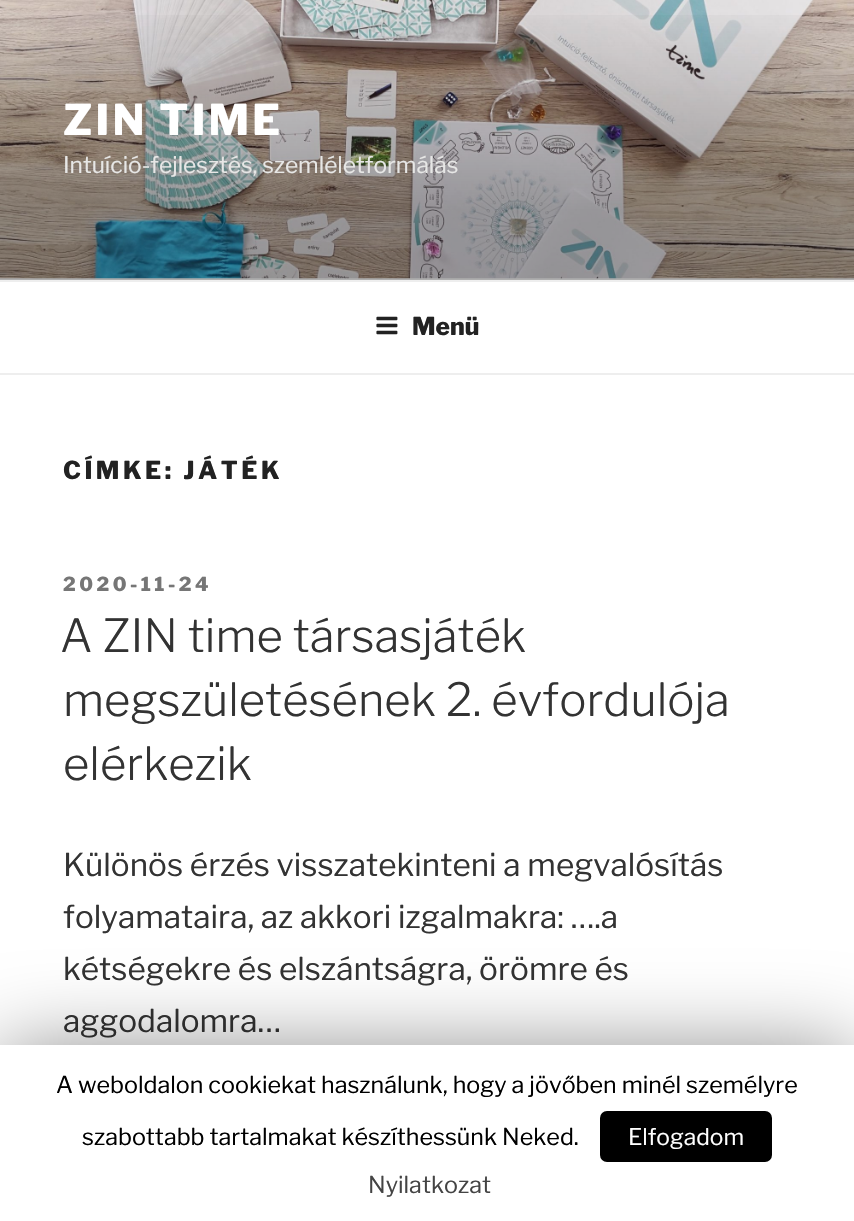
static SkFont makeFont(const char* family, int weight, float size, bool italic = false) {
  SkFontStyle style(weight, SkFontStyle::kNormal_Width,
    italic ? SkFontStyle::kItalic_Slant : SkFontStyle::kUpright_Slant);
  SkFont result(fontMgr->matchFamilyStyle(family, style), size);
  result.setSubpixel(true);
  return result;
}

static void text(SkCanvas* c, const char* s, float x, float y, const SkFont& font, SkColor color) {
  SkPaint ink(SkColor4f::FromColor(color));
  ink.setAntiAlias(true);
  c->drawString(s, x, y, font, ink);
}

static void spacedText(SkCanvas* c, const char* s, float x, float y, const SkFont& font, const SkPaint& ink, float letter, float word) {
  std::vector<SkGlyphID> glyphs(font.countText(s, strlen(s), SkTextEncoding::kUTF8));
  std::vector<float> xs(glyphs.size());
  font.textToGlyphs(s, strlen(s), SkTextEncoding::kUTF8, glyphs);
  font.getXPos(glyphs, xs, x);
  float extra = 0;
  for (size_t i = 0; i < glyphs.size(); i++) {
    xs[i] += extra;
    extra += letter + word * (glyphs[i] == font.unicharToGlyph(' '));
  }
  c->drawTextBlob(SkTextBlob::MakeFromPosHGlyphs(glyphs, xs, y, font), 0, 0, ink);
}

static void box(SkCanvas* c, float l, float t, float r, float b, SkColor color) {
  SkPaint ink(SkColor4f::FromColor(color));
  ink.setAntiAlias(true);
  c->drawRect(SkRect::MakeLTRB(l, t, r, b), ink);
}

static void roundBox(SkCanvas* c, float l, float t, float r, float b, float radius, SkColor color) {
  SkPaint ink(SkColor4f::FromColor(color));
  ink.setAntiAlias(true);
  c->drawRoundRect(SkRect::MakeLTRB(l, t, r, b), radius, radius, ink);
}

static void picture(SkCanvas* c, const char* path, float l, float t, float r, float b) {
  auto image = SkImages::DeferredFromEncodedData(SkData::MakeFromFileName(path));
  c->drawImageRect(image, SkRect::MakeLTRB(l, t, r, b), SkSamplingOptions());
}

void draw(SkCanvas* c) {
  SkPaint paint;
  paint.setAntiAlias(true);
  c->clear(0xffffffff);
  box(c, 0, 278, 854, 280, 0xfffafafa);
  picture(c, "img_01.png", 0, 0, 854, 279);
  {
    const SkColor colors[] = {0x00000000, 0x4d000000, 0x4d000000};
    const float stops[] = {0, 0.75f, 1};
    const SkPoint ends[] = {{427, 0}, {427, 280}};
    paint.setShader(SkGradientShader::MakeLinear(ends, colors, stops, 3, SkTileMode::kClamp));
    paint.setAlpha(255);
  }
  c->drawRect(SkRect::MakeLTRB(0, 15, 854, 280), paint);
  SkFont face1 = makeFont("Libre Franklin", 800, 42);
  paint.setShader(nullptr);
  paint.setColor(0xffffffff);
  spacedText(c, "ZIN TIME", 63, 135, face1, paint, 3.25f, 0);
  SkFont face2 = makeFont("Libre Franklin", 400, 22.75f);
  text(c, "Intuíció-fejlesztés, szemléletformálás", 63, 173, face2, 0xffe7e7e6);
  box(c, 0, 280, 854, 282, 0xffeeeeee);
  box(c, 0, 373, 854, 375, 0xffeeeeee);
  picture(c, "img_02.png", 376, 316, 398, 335);
  SkFont face3 = makeFont("Libre Franklin", 800, 24.5f);
  text(c, "Menü", 412, 335, face3, 0xff222222);
  paint.setColor(0xff222222);
  spacedText(c, "CÍMKE: JÁTÉK", 63, 479, face3, paint, 3.5f, 0);
  SkFont face4 = makeFont("Libre Franklin", 800, 19.25f);
  paint.setColor(0xff767676);
  spacedText(c, "2020-11-24", 63, 591, face4, paint, 3.5f, 0);
  SkFont face5 = makeFont("Libre Franklin", 300, 45.5f);
  text(c, "A ZIN time társasjáték", 60, 652, face5, 0xff333333);
  text(c, "megszületésének 2. évfordulója", 63, 716, face5, 0xff333333);
  text(c, "elérkezik", 63, 780, face5, 0xff333333);
  SkFont face6 = makeFont("Libre Franklin", 400, 31.5f);
  text(c, "Különös érzés visszatekinteni a megvalósítás", 63, 876, face6, 0xff333333);
  text(c, "folyamataira, az akkori izgalmakra: ….a", 63, 928, face6, 0xff333333);
  text(c, "kétségekre és elszántságra, örömre és", 63, 980, face6, 0xff333333);
  text(c, "aggodalomra…", 63, 1032, face6, 0xff333333);
  paint.setColor(0x80000000);
  paint.setMaskFilter(SkMaskFilter::MakeBlur(kNormal_SkBlurStyle, 44));
  c->drawRect(SkRect::MakeLTRB(0, 1054, 854, 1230), paint);
  paint.setMaskFilter(nullptr);
  box(c, 0, 1045, 854, 1221, 0xffffffff);
  SkFont face7 = makeFont("Libre Franklin", 400, 23.3f);
  text(c, "A weboldalon cookiekat használunk, hogy a jövőben minél személyre", 56, 1093, face7, 0xff000000);
  text(c, "szabottabb tartalmakat készíthessünk Neked.", 82, 1145, face7, 0xff000000);
  roundBox(c, 600, 1111, 772, 1162, 7, 0xff000000);
  text(c, "Elfogadom", 628, 1145, face2, 0xffffffff);
  text(c, "Nyilatkozat", 368, 1193, face7, 0xff444444);
}
